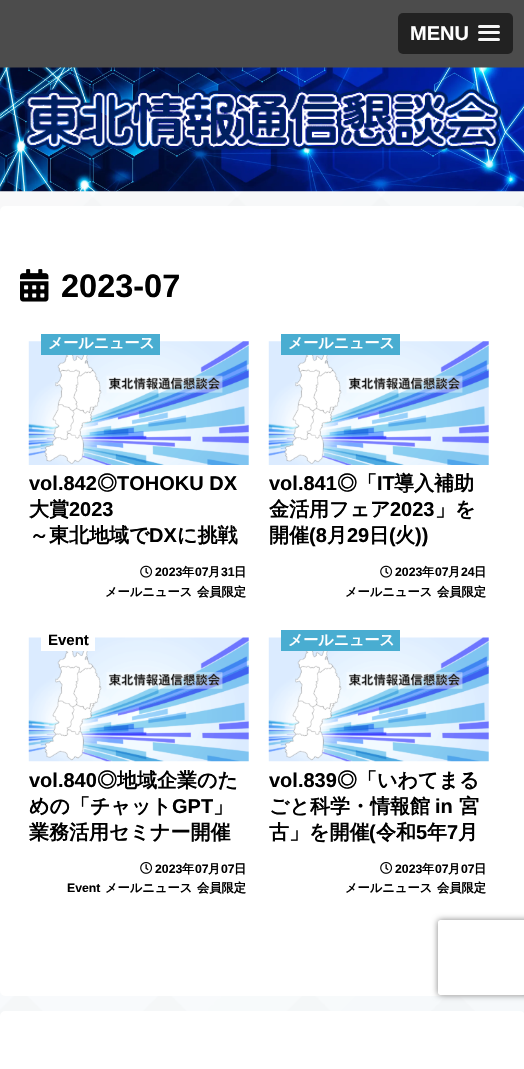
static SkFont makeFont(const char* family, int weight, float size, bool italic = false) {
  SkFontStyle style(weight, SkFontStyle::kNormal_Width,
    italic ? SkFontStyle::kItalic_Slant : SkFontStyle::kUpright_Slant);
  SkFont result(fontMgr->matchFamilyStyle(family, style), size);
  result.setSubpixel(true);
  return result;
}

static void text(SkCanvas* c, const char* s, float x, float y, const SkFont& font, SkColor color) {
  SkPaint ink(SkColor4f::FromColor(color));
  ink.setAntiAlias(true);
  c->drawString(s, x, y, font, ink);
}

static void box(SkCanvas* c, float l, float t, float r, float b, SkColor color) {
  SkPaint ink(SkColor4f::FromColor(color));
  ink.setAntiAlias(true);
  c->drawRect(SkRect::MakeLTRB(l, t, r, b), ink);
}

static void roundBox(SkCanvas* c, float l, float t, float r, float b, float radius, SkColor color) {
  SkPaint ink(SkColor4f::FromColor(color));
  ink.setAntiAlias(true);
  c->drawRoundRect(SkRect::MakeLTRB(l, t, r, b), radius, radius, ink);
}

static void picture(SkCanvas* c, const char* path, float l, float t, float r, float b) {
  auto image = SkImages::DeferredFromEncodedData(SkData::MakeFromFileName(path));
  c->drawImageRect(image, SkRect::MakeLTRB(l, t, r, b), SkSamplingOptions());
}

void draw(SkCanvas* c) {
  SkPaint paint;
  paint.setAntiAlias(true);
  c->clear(0xffffffff);
  picture(c, "img_01.png", 0, 191, 524, 1016);
  box(c, 0, 0, 524, 68, 0xff4c4c4c);
  roundBox(c, 398, 13, 513, 54, 5, 0xff222222);
  SkFont face1 = makeFont("Liberation Sans", 700, 20);
  text(c, "MENU", 410, 40, face1, 0xffffffff);
  paint.setColor(0xff1a1a1a);
  c->drawPath(SkPathBuilder().moveTo(478, 27.5f).cubicTo(477.5f, 29.5f, 481.5f, 29, 482.5f, 29).lineTo(495.5f, 29).cubicTo(496, 29, 501, 29.5f, 500, 27).lineTo(499, 27.5f).cubicTo(497, 27.5f, 478.5f, 27.5f, 478, 27.5f).close().detach(), paint);
  roundBox(c, 478, 25, 500, 28, 1.5f, 0xfff5f5f5);
  c->drawPath(SkPathBuilder().moveTo(478.5f, 33.5f).cubicTo(476.5f, 36.5f, 482, 36, 482.5f, 36).lineTo(489, 36).cubicTo(491, 36, 499, 36.5f, 499.5f, 35.5f).cubicTo(500, 34.5f, 500, 34, 499.5f, 33.5f).cubicTo(499, 34, 479.5f, 34, 478.5f, 33.5f).close().detach(), paint);
  roundBox(c, 478, 31, 500, 34, 1.5f, 0xfff5f5f5);
  c->drawPath(SkPathBuilder().moveTo(478, 40).cubicTo(477, 42.5f, 482, 42, 482.5f, 42).lineTo(495.5f, 42).cubicTo(495.5f, 42, 502, 42.5f, 499.5f, 39.5f).lineTo(499, 40).close().detach(), paint);
  roundBox(c, 478, 38, 500, 41, 1.5f, 0xfff5f5f5);
  picture(c, "img_02.png", 0, 67, 524, 192);
  picture(c, "img_03.png", 23, 88, 502, 151);
  roundBox(c, 0, 206, 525, 996, 5, 0xffffffff);
  picture(c, "img_04.png", 20, 269, 49, 302);
  SkFont face2 = makeFont("Liberation Sans", 700, 32.5f);
  text(c, "2023-07", 61, 297, face2, 0xff000000);
  picture(c, "img_05.png", 28, 341, 249, 465);
  box(c, 41, 334, 160, 355, 0xff49add1);
  SkFont face3 = makeFont("WenQuanYi Zen Hei", 700, 15);
  text(c, "メールニュース", 48, 348, face3, 0xffffffff);
  text(c, "vol.842", 29, 490, face1, 0xff000000);
  SkFont face4 = makeFont("WenQuanYi Zen Hei", 700, 20);
  text(c, "◎", 97, 490, face4, 0xff000000);
  text(c, "TOHOKU DX", 117, 490, face1, 0xff000000);
  text(c, "大賞", 29, 516, face4, 0xff000000);
  text(c, "2023", 69, 516, face1, 0xff000000);
  text(c, "～東北地域で", 29, 542, face4, 0xff000000);
  text(c, "DX", 149, 542, face1, 0xff000000);
  text(c, "に挑戦", 177, 542, face4, 0xff000000);
  picture(c, "img_06.png", 140, 565, 153, 578);
  SkFont face5 = makeFont("Liberation Sans", 700, 12.25f);
  text(c, "2023", 155, 576, face5, 0xff000000);
  SkFont face6 = makeFont("WenQuanYi Zen Hei", 700, 12.25f);
  text(c, "年", 182, 576, face6, 0xff000000);
  text(c, "07", 195, 576, face5, 0xff000000);
  text(c, "月", 208, 576, face6, 0xff000000);
  text(c, "31", 221, 576, face5, 0xff000000);
  text(c, "日", 234, 576, face6, 0xff000000);
  text(c, "メールニュース", 105, 596, face6, 0xff000000);
  text(c, "会員限定", 197, 596, face6, 0xff000000);
  picture(c, "img_07.png", 268, 341, 489, 465);
  box(c, 281, 334, 400, 355, 0xff49add1);
  text(c, "メールニュース", 288, 348, face3, 0xffffffff);
  text(c, "vol.841", 269, 490, face1, 0xff000000);
  text(c, "◎「", 337, 490, face4, 0xff000000);
  text(c, "IT", 377, 490, face1, 0xff000000);
  text(c, "導入補助", 394, 490, face4, 0xff000000);
  text(c, "金活用フェア", 269, 516, face4, 0xff000000);
  text(c, "2023", 390, 516, face1, 0xff000000);
  text(c, "」を", 435, 516, face4, 0xff000000);
  text(c, "開催", 269, 542, face4, 0xff000000);
  text(c, "(8", 309, 542, face1, 0xff000000);
  text(c, "月", 327, 542, face4, 0xff000000);
  text(c, "29", 347, 542, face1, 0xff000000);
  text(c, "日", 369, 542, face4, 0xff000000);
  text(c, "(", 389, 542, face1, 0xff000000);
  text(c, "火", 395, 542, face4, 0xff000000);
  text(c, "))", 415, 542, face1, 0xff000000);
  picture(c, "img_06.png", 380, 565, 393, 578);
  text(c, "2023", 395, 576, face5, 0xff000000);
  text(c, "年", 422, 576, face6, 0xff000000);
  text(c, "07", 435, 576, face5, 0xff000000);
  text(c, "月", 448, 576, face6, 0xff000000);
  text(c, "24", 461, 576, face5, 0xff000000);
  text(c, "日", 474, 576, face6, 0xff000000);
  text(c, "メールニュース", 345, 596, face6, 0xff000000);
  text(c, "会員限定", 437, 596, face6, 0xff000000);
  picture(c, "img_08.png", 28, 637, 249, 762);
  box(c, 41, 637, 95, 651, 0xffffffff);
  SkFont face7 = makeFont("Liberation Sans", 700, 15);
  text(c, "Event", 48, 645, face7, 0xff000000);
  text(c, "vol.840", 29, 787, face1, 0xff000000);
  text(c, "◎地域企業のた", 97, 787, face4, 0xff000000);
  text(c, "めの「チャット", 29, 813, face4, 0xff000000);
  text(c, "GPT", 172, 813, face1, 0xff000000);
  text(c, "」", 213, 813, face4, 0xff000000);
  text(c, "業務活用セミナー開催", 29, 839, face4, 0xff000000);
  picture(c, "img_09.png", 140, 862, 153, 874);
  text(c, "2023", 155, 873, face5, 0xff000000);
  text(c, "年", 182, 873, face6, 0xff000000);
  text(c, "07", 195, 873, face5, 0xff000000);
  text(c, "月", 208, 873, face6, 0xff000000);
  text(c, "07", 221, 873, face5, 0xff000000);
  text(c, "日", 234, 873, face6, 0xff000000);
  text(c, "Event", 67, 892, face5, 0xff000000);
  text(c, "メールニュース", 105, 892, face6, 0xff000000);
  text(c, "会員限定", 197, 892, face6, 0xff000000);
  picture(c, "img_10.png", 268, 637, 489, 762);
  box(c, 281, 630, 400, 651, 0xff49add1);
  text(c, "メールニュース", 288, 645, face3, 0xffffffff);
  text(c, "vol.839", 269, 787, face1, 0xff000000);
  text(c, "◎「いわてまる", 337, 787, face4, 0xff000000);
  text(c, "ごと科学・情報館", 269, 813, face4, 0xff000000);
  text(c, "in", 435, 813, face1, 0xff000000);
  text(c, "宮", 459, 813, face4, 0xff000000);
  text(c, "古」を開催", 269, 839, face4, 0xff000000);
  text(c, "(", 369, 839, face1, 0xff000000);
  text(c, "令和", 376, 839, face4, 0xff000000);
  text(c, "5", 416, 839, face1, 0xff000000);
  text(c, "年", 427, 839, face4, 0xff000000);
  text(c, "7", 447, 839, face1, 0xff000000);
  text(c, "月", 458, 839, face4, 0xff000000);
  picture(c, "img_09.png", 380, 862, 393, 874);
  text(c, "2023", 395, 873, face5, 0xff000000);
  text(c, "年", 422, 873, face6, 0xff000000);
  text(c, "07", 435, 873, face5, 0xff000000);
  text(c, "月", 448, 873, face6, 0xff000000);
  text(c, "07", 461, 873, face5, 0xff000000);
  text(c, "日", 474, 873, face6, 0xff000000);
  text(c, "メールニュース", 345, 892, face6, 0xff000000);
  text(c, "会員限定", 437, 892, face6, 0xff000000);
  roundBox(c, 0, 1011, 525, 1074, 5, 0xffffffff);
  c->save();
  c->clipPath(SkPathBuilder(SkPathFillType::kEvenOdd).moveTo(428, 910).lineTo(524, 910).lineTo(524, 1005).lineTo(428, 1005).close().moveTo(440.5f, 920).lineTo(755.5f, 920).cubicTo(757, 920, 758, 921, 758, 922.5f).lineTo(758, 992.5f).cubicTo(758, 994, 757, 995, 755.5f, 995).lineTo(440.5f, 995).cubicTo(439, 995, 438, 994, 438, 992.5f).lineTo(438, 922.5f).cubicTo(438, 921, 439, 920, 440.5f, 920).close().detach(), true);
  paint.setColor(0xff808080);
  paint.setMaskFilter(SkMaskFilter::MakeBlur(kNormal_SkBlurStyle, 3));
  c->drawRoundRect(SkRect::MakeLTRB(438, 920, 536, 995), 2.5f, 2.5f, paint);
  paint.setMaskFilter(nullptr);
  c->restore();
}
